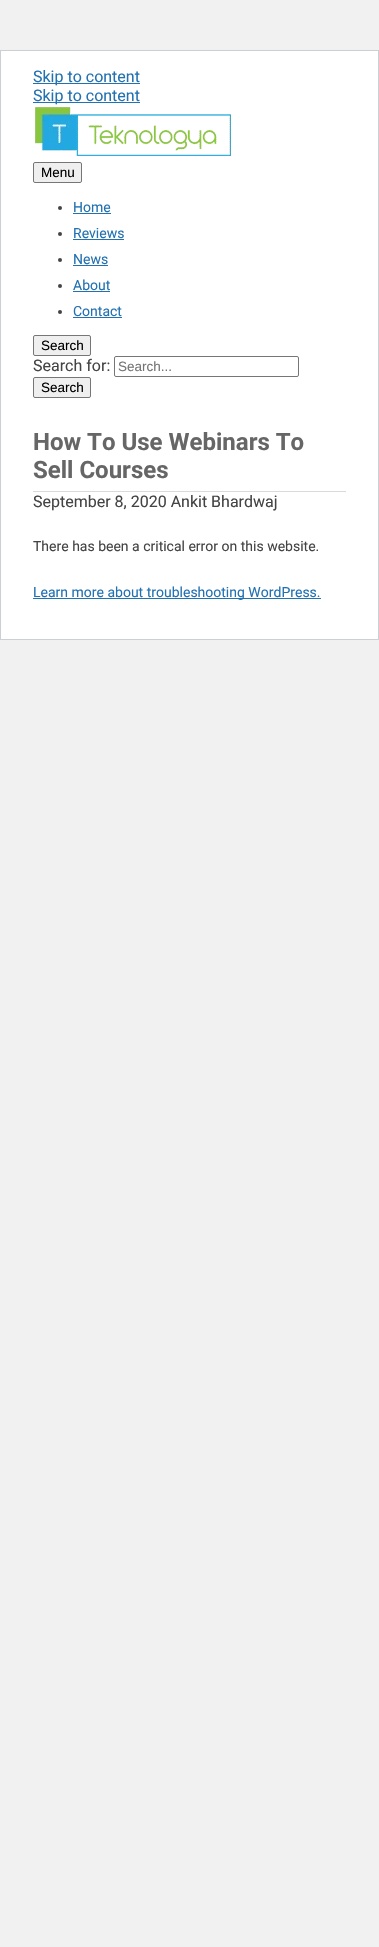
static SkFont makeFont(const char* family, int weight, float size, bool italic = false) {
  SkFontStyle style(weight, SkFontStyle::kNormal_Width,
    italic ? SkFontStyle::kItalic_Slant : SkFontStyle::kUpright_Slant);
  SkFont result(fontMgr->matchFamilyStyle(family, style), size);
  result.setSubpixel(true);
  return result;
}

static void text(SkCanvas* c, const char* s, float x, float y, const SkFont& font, SkColor color) {
  SkPaint ink(SkColor4f::FromColor(color));
  ink.setAntiAlias(true);
  c->drawString(s, x, y, font, ink);
}

static void box(SkCanvas* c, float l, float t, float r, float b, SkColor color) {
  SkPaint ink(SkColor4f::FromColor(color));
  ink.setAntiAlias(true);
  c->drawRect(SkRect::MakeLTRB(l, t, r, b), ink);
}

static void picture(SkCanvas* c, const char* path, float l, float t, float r, float b) {
  auto image = SkImages::DeferredFromEncodedData(SkData::MakeFromFileName(path));
  c->drawImageRect(image, SkRect::MakeLTRB(l, t, r, b), SkSamplingOptions());
}

void draw(SkCanvas* c) {
  SkPaint paint;
  paint.setAntiAlias(true);
  c->clear(0xfff1f1f1);
  paint.setColor(0xffffffff);
  c->drawRect(SkRect::MakeLTRB(0.5f, 50.5f, 378.5f, 639.5f), paint);
  paint.setStyle(SkPaint::kStroke_Style);
  paint.setStrokeWidth(1);
  paint.setColor(0xffccd0d4);
  c->drawRect(SkRect::MakeLTRB(0.5f, 50.5f, 378.5f, 639.5f), paint);
  box(c, 33, 83, 140, 84, 0xff2271b1);
  SkFont face1 = makeFont("Roboto", 400, 16);
  text(c, "Skip to content", 33, 82, face1, 0xff2271b1);
  box(c, 33, 102, 140, 103, 0xff2271b1);
  text(c, "Skip to content", 33, 101, face1, 0xff2271b1);
  picture(c, "img_01.png", 35, 107, 231, 156);
  paint.setStyle(SkPaint::kFill_Style);
  paint.setColor(0xffefefef);
  c->drawRoundRect(SkRect::MakeLTRB(33.5f, 162.5f, 81.5f, 182.5f), 1.5f, 1.5f, paint);
  paint.setStyle(SkPaint::kStroke_Style);
  paint.setColor(0xff767676);
  c->drawRoundRect(SkRect::MakeLTRB(33.5f, 162.5f, 81.5f, 182.5f), 1.5f, 1.5f, paint);
  SkFont face2 = makeFont("Liberation Sans", 400, 13.5f);
  text(c, "Menu", 41, 177, face2, 0xff000000);
  paint.setStyle(SkPaint::kFill_Style);
  paint.setColor(0xff444444);
  c->drawCircle(60, 208, 2, paint);
  SkFont face3 = makeFont("Roboto", 400, 14);
  text(c, "Home", 73, 212, face3, 0xff2271b1);
  box(c, 73, 213, 111, 214, 0xff2271b1);
  c->drawCircle(60, 234, 2, paint);
  text(c, "Reviews", 73, 238, face3, 0xff2271b1);
  box(c, 73, 239, 124, 240, 0xff2271b1);
  c->drawCircle(60, 260, 2, paint);
  text(c, "News", 73, 264, face3, 0xff2271b1);
  box(c, 73, 265, 108, 266, 0xff2271b1);
  c->drawCircle(60, 286, 2, paint);
  text(c, "About", 73, 290, face3, 0xff2271b1);
  box(c, 73, 291, 110, 292, 0xff2271b1);
  c->drawCircle(60, 312, 2, paint);
  text(c, "Contact", 73, 316, face3, 0xff2271b1);
  box(c, 73, 317, 122, 318, 0xff2271b1);
  paint.setColor(0xffefefef);
  c->drawRoundRect(SkRect::MakeLTRB(33.5f, 335.5f, 90.5f, 355.5f), 1.5f, 1.5f, paint);
  paint.setStyle(SkPaint::kStroke_Style);
  paint.setColor(0xff767676);
  c->drawRoundRect(SkRect::MakeLTRB(33.5f, 335.5f, 90.5f, 355.5f), 1.5f, 1.5f, paint);
  text(c, "Search", 41, 350, face2, 0xff000000);
  text(c, "Search for:", 33, 371, face1, 0xff444444);
  c->drawRoundRect(SkRect::MakeLTRB(114.5f, 356.5f, 298.5f, 376.5f), 1.5f, 1.5f, paint);
  text(c, "Search...", 118, 371, face2, 0xff757575);
  paint.setStyle(SkPaint::kFill_Style);
  paint.setColor(0xffefefef);
  c->drawRoundRect(SkRect::MakeLTRB(33.5f, 377.5f, 90.5f, 397.5f), 1.5f, 1.5f, paint);
  paint.setStyle(SkPaint::kStroke_Style);
  paint.setColor(0xff767676);
  c->drawRoundRect(SkRect::MakeLTRB(33.5f, 377.5f, 90.5f, 397.5f), 1.5f, 1.5f, paint);
  text(c, "Search", 41, 392, face2, 0xff000000);
  box(c, 33, 491, 346, 492, 0xffdadada);
  SkFont face4 = makeFont("Roboto", 700, 24);
  text(c, "How To Use Webinars To", 33, 450, face4, 0xff666666);
  text(c, "Sell Courses", 33, 478, face4, 0xff666666);
  text(c, "September 8, 2020 Ankit Bhardwaj", 33, 507, face1, 0xff444444);
  text(c, "There has been a critical error on this website.", 33, 551, face3, 0xff444444);
  box(c, 33, 598, 321, 599, 0xff2271b1);
  text(c, "Learn more about troubleshooting WordPress.", 33, 597, face3, 0xff2271b1);
}
